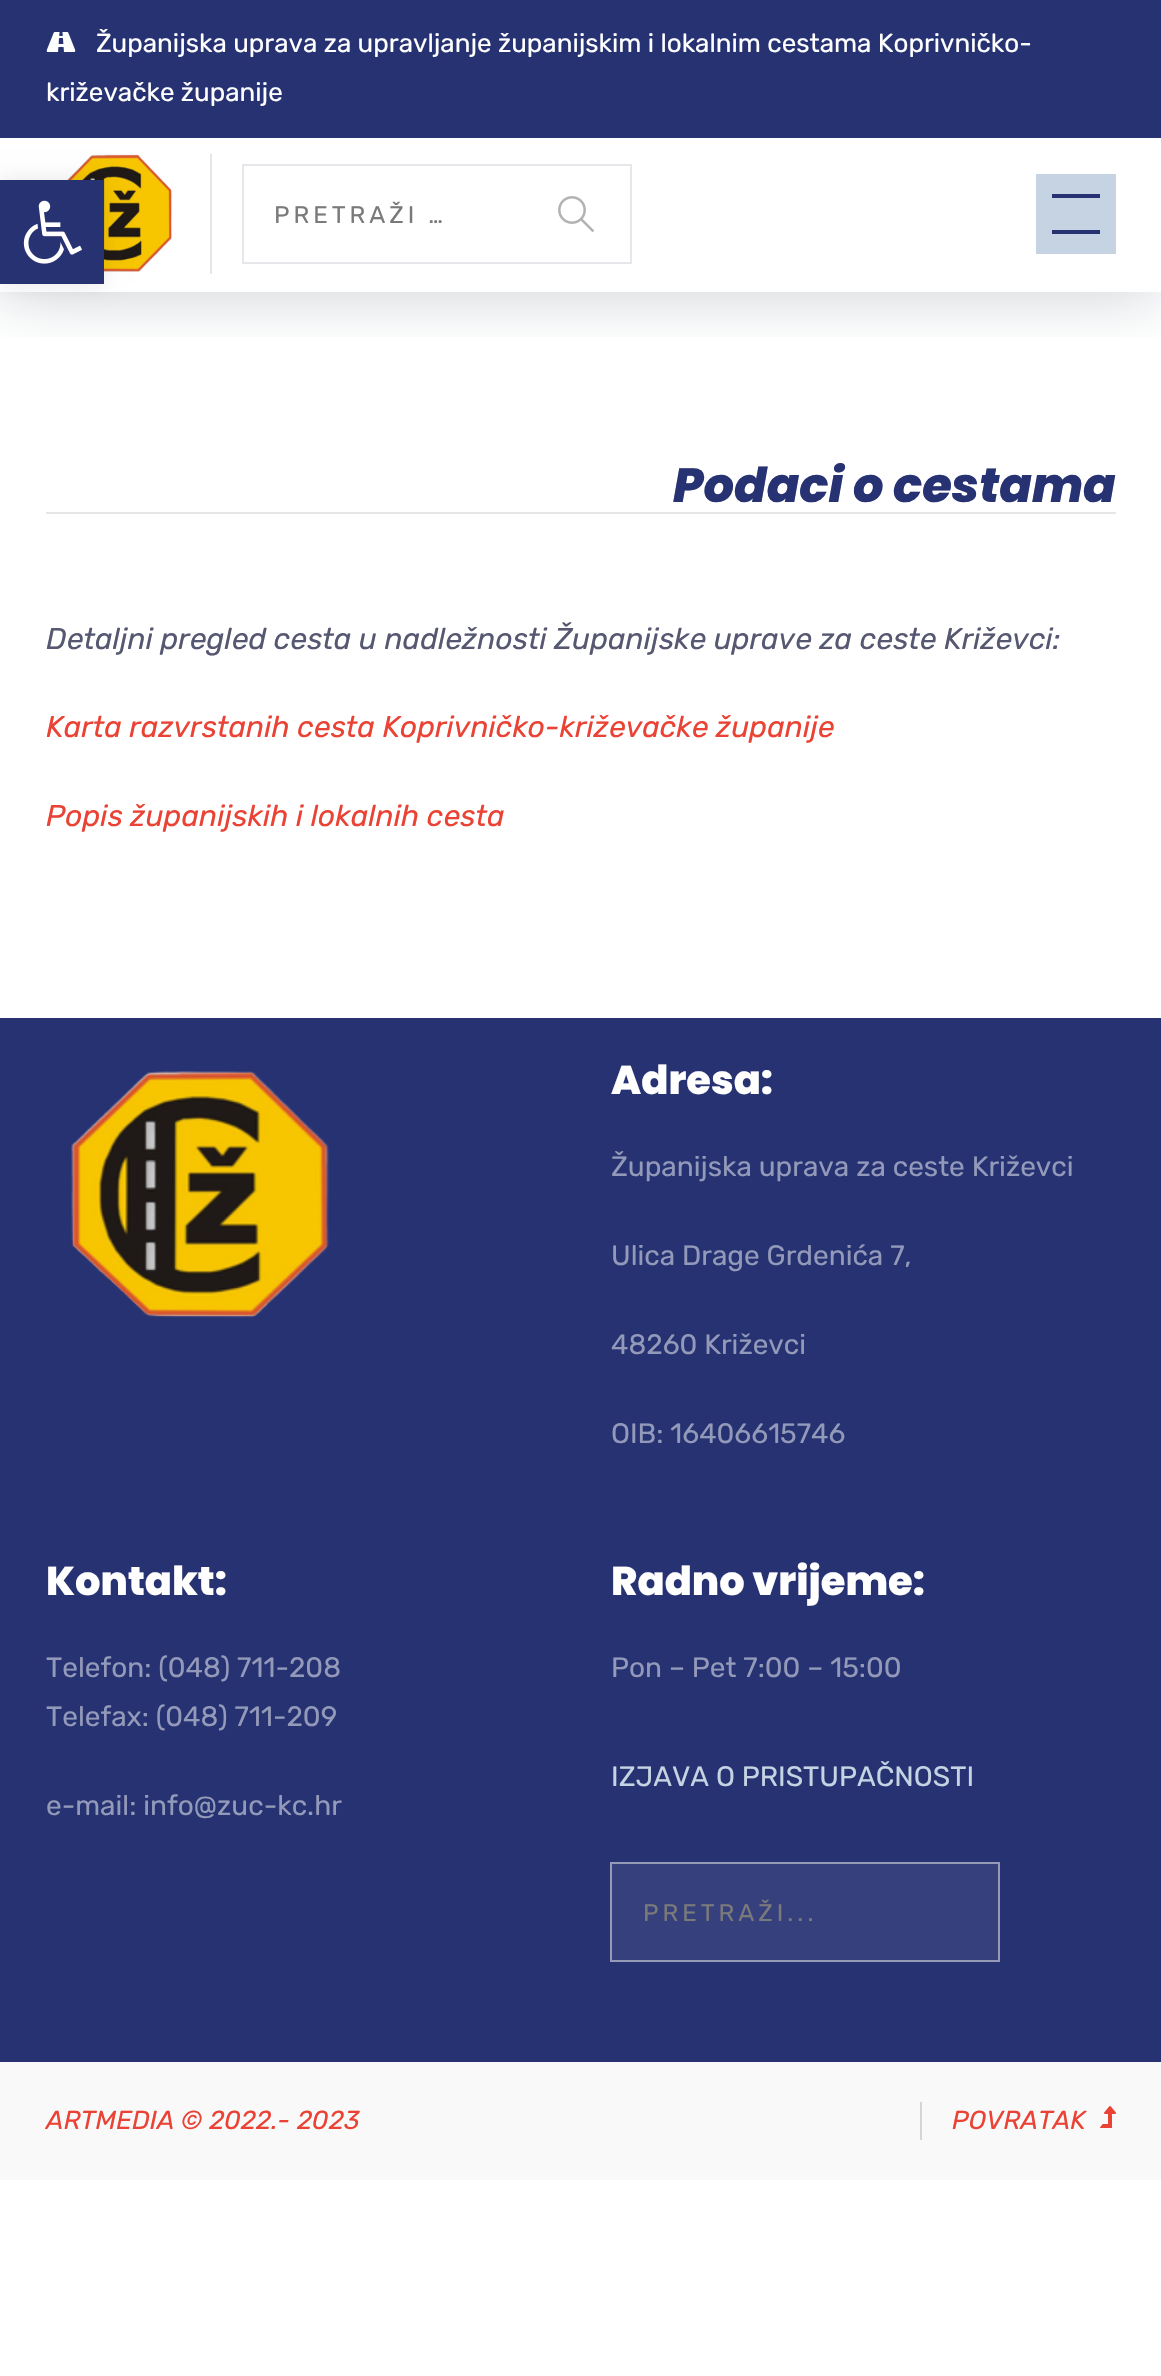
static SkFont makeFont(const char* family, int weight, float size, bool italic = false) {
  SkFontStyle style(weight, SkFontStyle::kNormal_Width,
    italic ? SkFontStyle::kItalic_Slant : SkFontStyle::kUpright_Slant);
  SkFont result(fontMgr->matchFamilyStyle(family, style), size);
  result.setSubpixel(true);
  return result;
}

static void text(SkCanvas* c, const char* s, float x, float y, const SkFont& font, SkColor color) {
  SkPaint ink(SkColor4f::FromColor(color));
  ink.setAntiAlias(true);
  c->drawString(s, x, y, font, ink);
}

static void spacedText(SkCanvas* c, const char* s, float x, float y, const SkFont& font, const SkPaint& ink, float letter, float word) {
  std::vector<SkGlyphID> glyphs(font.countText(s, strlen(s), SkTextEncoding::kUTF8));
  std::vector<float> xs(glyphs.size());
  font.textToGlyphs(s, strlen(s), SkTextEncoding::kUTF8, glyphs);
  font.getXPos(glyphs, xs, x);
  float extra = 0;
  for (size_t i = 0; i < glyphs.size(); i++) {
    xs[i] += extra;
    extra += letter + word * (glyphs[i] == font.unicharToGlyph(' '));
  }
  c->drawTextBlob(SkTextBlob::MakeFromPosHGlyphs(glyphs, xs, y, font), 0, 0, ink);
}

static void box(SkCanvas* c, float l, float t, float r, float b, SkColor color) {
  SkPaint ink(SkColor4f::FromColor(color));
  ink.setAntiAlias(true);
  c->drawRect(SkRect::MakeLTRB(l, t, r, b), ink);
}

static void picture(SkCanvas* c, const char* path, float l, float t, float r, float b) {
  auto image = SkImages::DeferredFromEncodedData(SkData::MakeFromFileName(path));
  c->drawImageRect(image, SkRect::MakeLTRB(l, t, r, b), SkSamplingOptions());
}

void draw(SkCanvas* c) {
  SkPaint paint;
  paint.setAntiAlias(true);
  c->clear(0xffffffff);
  c->save();
  c->clipRect(SkRect::MakeLTRB(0, 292, 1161, 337));
  paint.setColor(0x33020620);
  paint.setMaskFilter(SkMaskFilter::MakeBlur(kNormal_SkBlurStyle, 35));
  c->drawRect(SkRect::MakeLTRB(0, 138, 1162, 292), paint);
  paint.setMaskFilter(nullptr);
  c->restore();
  box(c, 0, 0, 1161, 138, 0xff273272);
  picture(c, "img_01.png", 46, 32, 76, 52);
  SkFont face1 = makeFont("Rubik", 400, 26);
  text(c, "Županijska uprava za upravljanje županijskim i lokalnim cestama Koprivničko-", 96, 52, face1, 0xffffffff);
  text(c, "križevačke županije", 46, 101, face1, 0xffffffff);
  picture(c, "img_02.png", 67, 154, 172, 272);
  box(c, 210, 154, 212, 274, 0xffe6e6e9);
  paint.setStyle(SkPaint::kStroke_Style);
  paint.setStrokeWidth(2);
  paint.setColor(0xffe6e6eb);
  c->drawRect(SkRect::MakeLTRB(243, 165, 631, 263), paint);
  SkFont face2 = makeFont("Rubik", 400, 24);
  paint.setStyle(SkPaint::kFill_Style);
  paint.setColor(0xff7a7a7a);
  spacedText(c, "PRETRAŽI …", 274, 223, face2, paint, 4, 0);
  picture(c, "img_03.png", 558, 196, 594, 232);
  box(c, 1036, 174, 1116, 254, 0xffc6d3e3);
  box(c, 1052, 194, 1100, 198, 0xff273272);
  box(c, 1052, 230, 1100, 234, 0xff273272);
  box(c, 46, 512, 1116, 514, 0xffe6e6e9);
  SkFont face3 = makeFont("Poppins", 800, 48, true);
  text(c, "Podaci o cestama", 673, 502, face3, 0xff273272);
  SkFont face4 = makeFont("Rubik", 400, 30, true);
  text(c, "Detaljni pregled cesta u nadležnosti Županijske uprave za ceste Križevci:", 46, 649, face4, 0xff565872);
  text(c, "Karta razvrstanih cesta Koprivničko-križevačke županije", 46, 737, face4, 0xffea4335);
  text(c, "Popis županijskih i lokalnih cesta", 46, 826, face4, 0xffea4335);
  box(c, 0, 1018, 1161, 2062, 0xff273272);
  picture(c, "img_04.png", 71, 1071, 329, 1318);
  SkFont face5 = makeFont("Poppins", 800, 40);
  text(c, "Adresa:", 611, 1094, face5, 0xffffffff);
  SkFont face6 = makeFont("Rubik", 400, 28);
  text(c, "Županijska uprava za ceste Križevci", 611, 1176, face6, 0xff9399b9);
  text(c, "Ulica Drage Grdenića 7,", 611, 1265, face6, 0xff9399b9);
  text(c, "48260 Križevci", 611, 1354, face6, 0xff9399b9);
  text(c, "OIB: 16406615746", 611, 1443, face6, 0xff9399b9);
  text(c, "Kontakt:", 46, 1595, face5, 0xffffffff);
  text(c, "Telefon: (048) 711-208", 46, 1677, face6, 0xff9399b9);
  text(c, "Telefax: (048) 711-209", 46, 1726, face6, 0xff9399b9);
  text(c, "e-mail: info@zuc-kc.hr", 46, 1815, face6, 0xff9399b9);
  text(c, "Radno vrijeme:", 611, 1595, face5, 0xffffffff);
  text(c, "Pon – Pet 7:00 – 15:00", 611, 1677, face6, 0xff9399b9);
  text(c, "IZJAVA O PRISTUPAČNOSTI", 611, 1786, face6, 0xffc6d3e3);
  paint.setColor(0xff36407c);
  c->drawRect(SkRect::MakeLTRB(611, 1863, 999, 1961), paint);
  paint.setStyle(SkPaint::kStroke_Style);
  paint.setColor(0xff959ab6);
  c->drawRect(SkRect::MakeLTRB(611, 1863, 999, 1961), paint);
  paint.setStyle(SkPaint::kFill_Style);
  paint.setColor(0xff7a7a7a);
  spacedText(c, "PRETRAŽI...", 643, 1921, face2, paint, 4, 0);
  box(c, 0, 2062, 1161, 2180, 0xfff9f9f9);
  SkFont face7 = makeFont("Rubik", 400, 26, true);
  text(c, "ARTMEDIA © 2022.- 2023", 46, 2129, face7, 0xffea4335);
  box(c, 920, 2102, 922, 2140, 0xffd4d5d8);
  text(c, "POVRATAK", 952, 2129, face7, 0xffea4335);
  picture(c, "img_05.png", 1100, 2106, 1116, 2128);
  paint.setColor(0x1a000000);
  paint.setMaskFilter(SkMaskFilter::MakeBlur(kNormal_SkBlurStyle, 10));
  c->drawRect(SkRect::MakeLTRB(0, 180, 104, 284), paint);
  paint.setMaskFilter(nullptr);
  box(c, 0, 180, 104, 284, 0xff273272);
  picture(c, "img_06.png", 23, 200, 82, 264);
}
